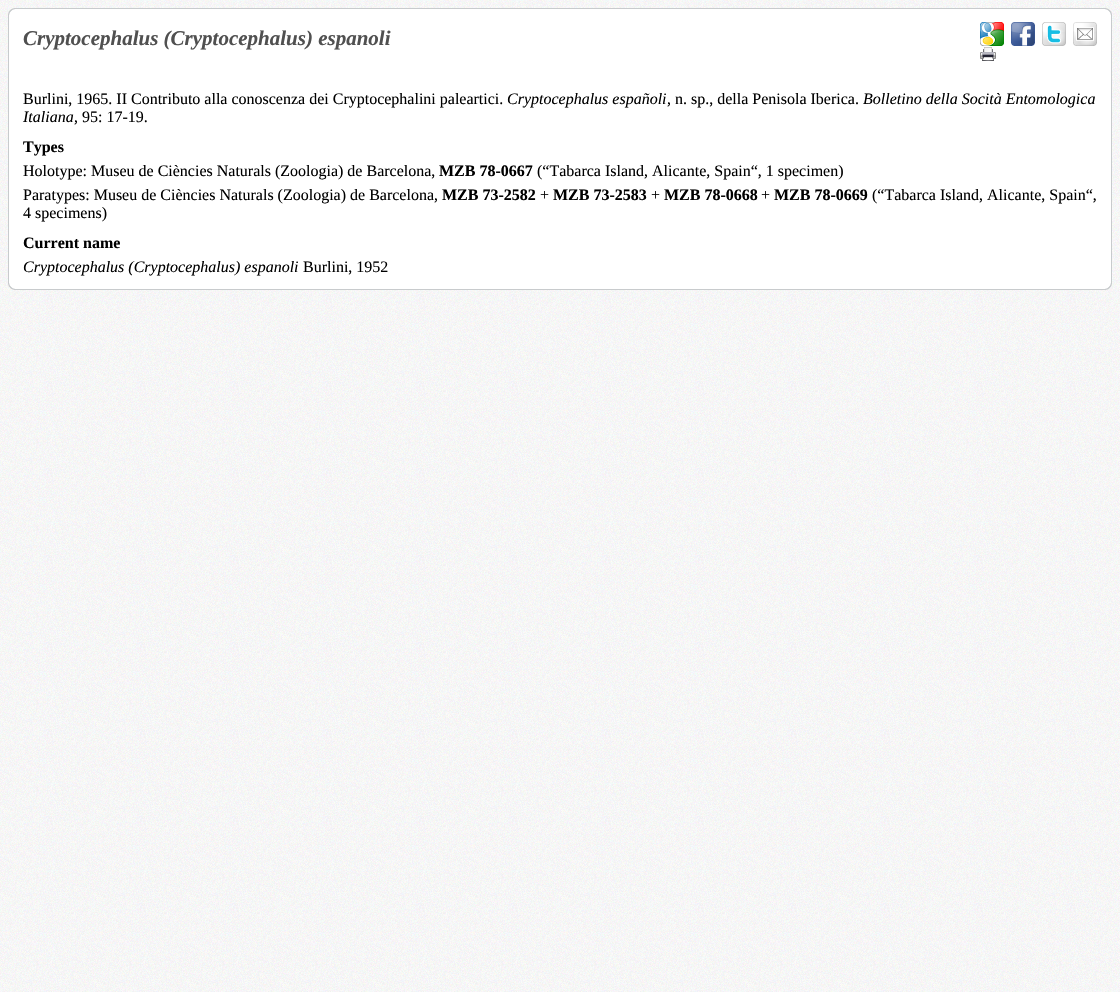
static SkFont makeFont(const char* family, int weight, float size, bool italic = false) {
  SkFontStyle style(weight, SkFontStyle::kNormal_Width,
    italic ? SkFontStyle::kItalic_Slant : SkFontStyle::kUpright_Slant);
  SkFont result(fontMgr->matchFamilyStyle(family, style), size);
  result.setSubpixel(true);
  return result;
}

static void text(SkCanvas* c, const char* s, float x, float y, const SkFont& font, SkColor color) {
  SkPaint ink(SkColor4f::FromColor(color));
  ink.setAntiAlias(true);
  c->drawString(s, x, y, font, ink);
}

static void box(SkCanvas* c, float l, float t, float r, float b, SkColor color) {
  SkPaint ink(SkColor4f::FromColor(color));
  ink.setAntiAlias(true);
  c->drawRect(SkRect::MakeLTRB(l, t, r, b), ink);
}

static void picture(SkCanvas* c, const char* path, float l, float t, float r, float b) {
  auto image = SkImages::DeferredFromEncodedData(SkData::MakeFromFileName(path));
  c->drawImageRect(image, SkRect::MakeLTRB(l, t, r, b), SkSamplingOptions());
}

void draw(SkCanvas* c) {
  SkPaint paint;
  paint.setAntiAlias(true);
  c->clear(0xffffffff);
  picture(c, "img_01.png", 0, 0, 1120, 992);
  picture(c, "img_02.png", 8, 8, 18, 18);
  picture(c, "img_03.png", 1102, 8, 1112, 18);
  box(c, 18, 9, 1102, 18, 0xffffffff);
  box(c, 18, 8, 1102, 9, 0xffc8cbcd);
  box(c, 9, 18, 1111, 280, 0xffffffff);
  box(c, 1111, 18, 1112, 280, 0xffc8cbcd);
  box(c, 8, 18, 9, 280, 0xffc8cbcd);
  SkFont face1 = makeFont("Liberation Serif", 700, 21, true);
  text(c, "Cryptocephalus (Cryptocephalus) espanoli", 23, 45, face1, 0xff505050);
  picture(c, "img_04.png", 980, 22, 1004, 46);
  picture(c, "img_05.png", 1011, 22, 1035, 46);
  picture(c, "img_06.png", 1042, 22, 1066, 46);
  picture(c, "img_07.png", 1073, 22, 1097, 46);
  picture(c, "img_08.png", 980, 47, 996, 61);
  SkFont face2 = makeFont("Liberation Serif", 400, 16);
  text(c, "Burlini, 1965. II Contributo alla conoscenza dei Cryptocephalini paleartici.", 23, 104, face2, 0xff000000);
  SkFont face3 = makeFont("Liberation Serif", 400, 16, true);
  text(c, "Cryptocephalus españoli", 507, 104, face3, 0xff000000);
  text(c, ", n. sp., della Penisola Iberica.", 667, 104, face2, 0xff000000);
  text(c, "Bolletino della Socità Entomologica", 863, 104, face3, 0xff000000);
  text(c, "Italiana", 23, 122, face3, 0xff000000);
  text(c, ", 95: 17-19.", 74, 122, face2, 0xff000000);
  SkFont face4 = makeFont("Liberation Serif", 700, 16);
  text(c, "Types", 23, 152, face4, 0xff000000);
  text(c, "Holotype: Museu de Ciències Naturals (Zoologia) de Barcelona,", 23, 176, face2, 0xff000000);
  text(c, "MZB 78-0667", 439, 176, face4, 0xff000000);
  text(c, "(“Tabarca Island, Alicante, Spain“, 1 specimen)", 537, 176, face2, 0xff000000);
  text(c, "Paratypes: Museu de Ciències Naturals (Zoologia) de Barcelona,", 23, 200, face2, 0xff000000);
  text(c, "MZB 73-2582", 442, 200, face4, 0xff000000);
  text(c, "+", 540, 200, face2, 0xff000000);
  text(c, "MZB 73-2583", 553, 200, face4, 0xff000000);
  text(c, "+", 651, 200, face2, 0xff000000);
  text(c, "MZB 78-0668", 664, 200, face4, 0xff000000);
  text(c, "+", 761, 200, face2, 0xff000000);
  text(c, "MZB 78-0669", 774, 200, face4, 0xff000000);
  text(c, "(“Tabarca Island, Alicante, Spain“,", 872, 200, face2, 0xff000000);
  text(c, "4 specimens)", 23, 218, face2, 0xff000000);
  text(c, "Current name", 23, 248, face4, 0xff000000);
  text(c, "Cryptocephalus (Cryptocephalus) espanoli", 23, 272, face3, 0xff000000);
  text(c, "Burlini, 1952", 303, 272, face2, 0xff000000);
  picture(c, "img_09.png", 8, 280, 18, 290);
  picture(c, "img_10.png", 1102, 280, 1112, 290);
  box(c, 18, 280, 1102, 289, 0xffffffff);
  box(c, 18, 289, 1102, 290, 0xffc8cbcd);
}
